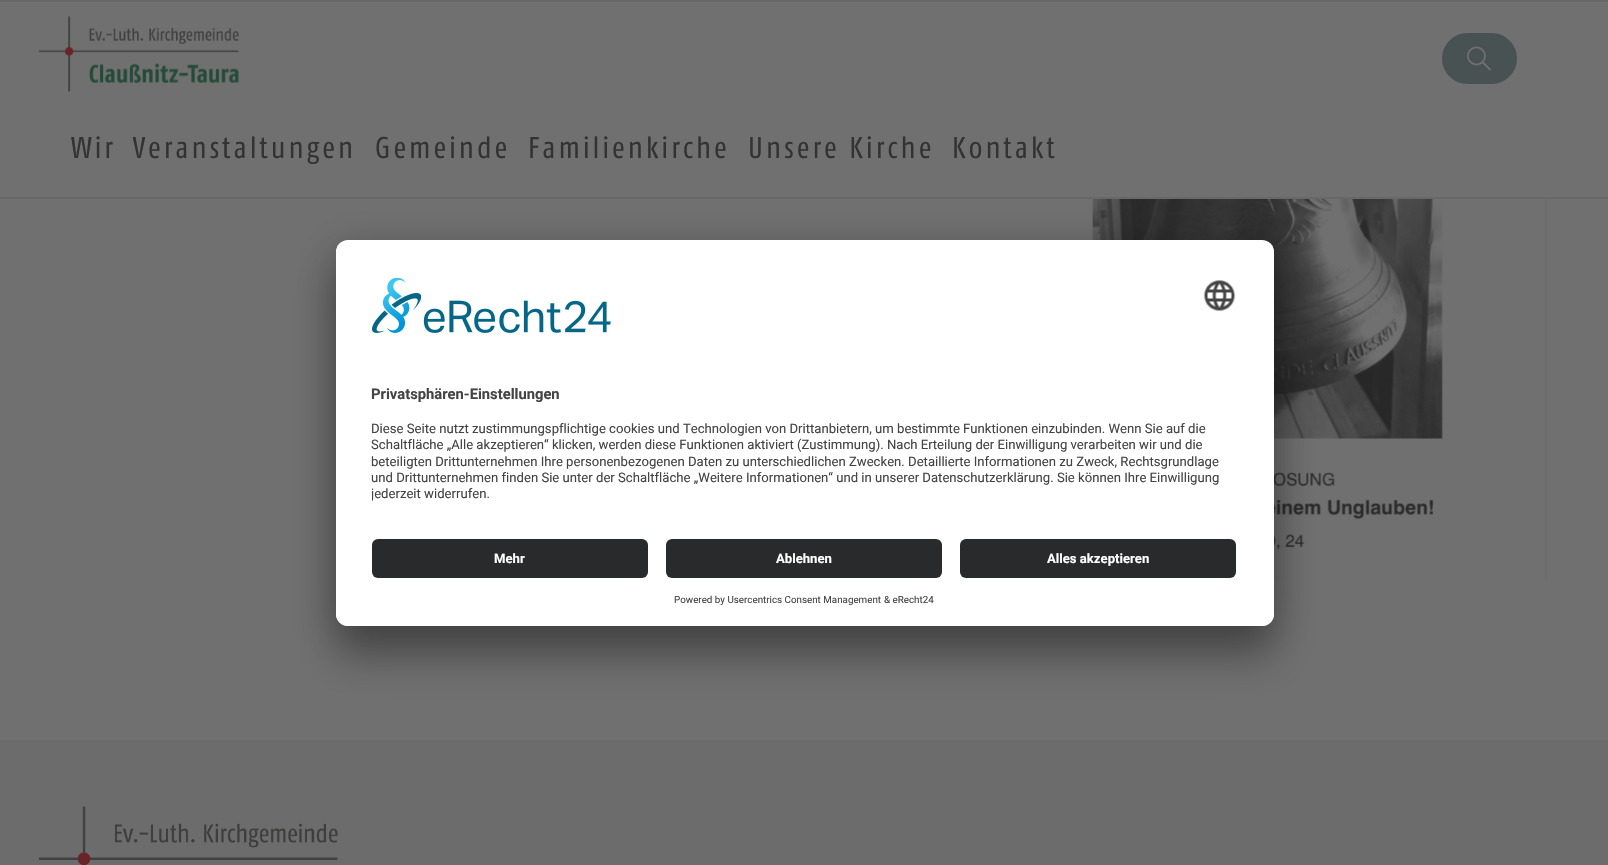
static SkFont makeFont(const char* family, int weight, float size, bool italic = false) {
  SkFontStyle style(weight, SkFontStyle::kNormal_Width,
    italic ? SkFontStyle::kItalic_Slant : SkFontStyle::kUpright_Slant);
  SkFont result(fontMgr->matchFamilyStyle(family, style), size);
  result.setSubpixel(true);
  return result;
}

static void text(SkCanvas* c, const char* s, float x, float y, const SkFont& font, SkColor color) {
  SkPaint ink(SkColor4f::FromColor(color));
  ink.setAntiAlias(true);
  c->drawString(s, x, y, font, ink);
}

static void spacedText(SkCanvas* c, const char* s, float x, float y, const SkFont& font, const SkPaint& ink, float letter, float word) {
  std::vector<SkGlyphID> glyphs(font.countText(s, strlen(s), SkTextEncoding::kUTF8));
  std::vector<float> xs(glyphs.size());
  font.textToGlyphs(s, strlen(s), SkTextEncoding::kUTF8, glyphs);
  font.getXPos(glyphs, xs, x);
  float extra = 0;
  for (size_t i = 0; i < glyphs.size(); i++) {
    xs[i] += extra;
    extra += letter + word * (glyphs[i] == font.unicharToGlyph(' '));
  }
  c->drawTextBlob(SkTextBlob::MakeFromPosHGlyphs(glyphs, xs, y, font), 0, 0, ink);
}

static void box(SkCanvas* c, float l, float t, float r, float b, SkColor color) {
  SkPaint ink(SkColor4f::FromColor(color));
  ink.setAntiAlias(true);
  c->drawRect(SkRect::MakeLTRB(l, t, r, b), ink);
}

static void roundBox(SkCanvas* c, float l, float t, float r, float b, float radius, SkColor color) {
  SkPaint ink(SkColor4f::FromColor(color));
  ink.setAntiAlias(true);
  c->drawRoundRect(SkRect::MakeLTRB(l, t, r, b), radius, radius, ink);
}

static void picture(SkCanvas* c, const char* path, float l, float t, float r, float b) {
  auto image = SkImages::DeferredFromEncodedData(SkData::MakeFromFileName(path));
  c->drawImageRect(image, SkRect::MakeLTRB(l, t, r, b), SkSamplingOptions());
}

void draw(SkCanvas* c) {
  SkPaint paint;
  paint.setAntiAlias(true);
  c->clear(0xff6c6c6c);
  box(c, 0, 2, 1608, 197, 0xff707070);
  box(c, 0, 197, 1608, 199, 0xff686868);
  box(c, 0, 0, 1608, 2, 0xff686868);
  paint.setColor(0xff485252);
  c->drawRoundRect(SkRect::MakeLTRB(1443, 34, 1516, 83), 24.5f, 24.5f, paint);
  paint.setStyle(SkPaint::kStroke_Style);
  paint.setStrokeWidth(2);
  c->drawRoundRect(SkRect::MakeLTRB(1443, 34, 1516, 83), 24.5f, 24.5f, paint);
  picture(c, "img_01.png", 1467, 46, 1491, 71);
  picture(c, "img_02.png", 39, 16, 239, 92);
  SkFont face1 = makeFont("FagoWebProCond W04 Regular", 400, 30);
  paint.setStyle(SkPaint::kFill_Style);
  paint.setColor(0xff333333);
  spacedText(c, "Wir", 71, 158, face1, paint, 3, 0);
  spacedText(c, "Veranstaltungen", 133, 158, face1, paint, 3, 0);
  spacedText(c, "Gemeinde", 375, 158, face1, paint, 3, 0);
  spacedText(c, "Familienkirche", 528, 158, face1, paint, 3, 0);
  spacedText(c, "Unsere Kirche", 748, 158, face1, paint, 3, 0);
  spacedText(c, "Kontakt", 952, 158, face1, paint, 3, 0);
  box(c, 0, 199, 1608, 740, 0xff707070);
  picture(c, "img_03.png", 954, 199, 1547, 580);
  picture(c, "img_04.png", 39, 806, 338, 865);
  paint.setColor(0x4d000000);
  paint.setMaskFilter(SkMaskFilter::MakeBlur(kNormal_SkBlurStyle, 21));
  c->drawRoundRect(SkRect::MakeLTRB(336, 270, 1274, 656), 12, 12, paint);
  paint.setMaskFilter(nullptr);
  paint.setColor(0x38000000);
  paint.setMaskFilter(SkMaskFilter::MakeBlur(kNormal_SkBlurStyle, 19.5f));
  c->drawRoundRect(SkRect::MakeLTRB(336, 248, 1274, 633), 12, 12, paint);
  paint.setMaskFilter(nullptr);
  roundBox(c, 336, 240, 1274, 626, 12, 0xffffffff);
  c->save();
  c->clipPath(SkPathBuilder().moveTo(348, 240).lineTo(1262, 240).cubicTo(1268.5f, 240, 1274, 245.5f, 1274, 252).lineTo(1274, 614).cubicTo(1274, 620.5f, 1268.5f, 626, 1262, 626).lineTo(348, 626).cubicTo(341.5f, 626, 336, 620.5f, 336, 614).lineTo(336, 252).cubicTo(336, 245.5f, 341.5f, 240, 348, 240).close().detach(), true);
  c->clipPath(SkPathBuilder().moveTo(348, 240).lineTo(1262, 240).cubicTo(1268.5f, 240, 1274, 245.5f, 1274, 252).lineTo(1274, 527).lineTo(336, 527).lineTo(336, 252).cubicTo(336, 245.5f, 341.5f, 240, 348, 240).close().detach(), true);
  box(c, 336, 242, 1274, 527, 0xffffffff);
  c->restore();
  picture(c, "img_05.png", 372, 278, 611, 333);
  picture(c, "img_06.png", 1204, 280, 1235, 311);
  SkFont face2 = makeFont("Roboto", 700, 14.75f);
  text(c, "Privatsphären-Einstellungen", 371, 399, face2, 0xff444444);
  SkFont face3 = makeFont("Roboto", 400, 13.12f);
  text(c, "Diese Seite nutzt zustimmungspflichtige cookies und Technologien von Drittanbietern, um bestimmte Funktionen einzubinden. Wenn Sie auf die", 371, 433, face3, 0xff444444);
  text(c, "Schaltfläche „Alle akzeptieren“ klicken, werden diese Funktionen aktiviert (Zustimmung). Nach Erteilung der Einwilligung verarbeiten wir und die", 371, 449, face3, 0xff444444);
  text(c, "beteiligten Drittunternehmen Ihre personenbezogenen Daten zu unterschiedlichen Zwecken. Detaillierte Informationen zu Zweck, Rechtsgrundlage", 371, 466, face3, 0xff444444);
  text(c, "und Drittunternehmen finden Sie unter der Schaltfläche „Weitere Informationen“ und in unserer Datenschutzerklärung. Sie können Ihre Einwilligung", 371, 482, face3, 0xff444444);
  c->save();
  c->clipRect(SkRect::MakeLTRB(372, 416, 1238, 509));
  text(c, "jederzeit widerrufen.", 371, 498, face3, 0xff444444);
  c->restore();
  paint.setColor(0xffffffff);
  c->drawPath(SkPathBuilder().moveTo(336, 527).lineTo(1274, 527).lineTo(1274, 614).cubicTo(1274, 620.5f, 1268.5f, 626, 1262, 626).lineTo(348, 626).cubicTo(341.5f, 626, 336, 620.5f, 336, 614).close().detach(), paint);
  roundBox(c, 372, 539, 648, 578, 6, 0xff292a2b);
  SkFont face4 = makeFont("Roboto", 700, 13.12f);
  text(c, "Mehr", 494, 563, face4, 0xffffffff);
  roundBox(c, 666, 539, 942, 578, 6, 0xff292a2b);
  text(c, "Ablehnen", 776, 563, face4, 0xffffffff);
  roundBox(c, 960, 539, 1236, 578, 6, 0xff292a2b);
  text(c, "Alles akzeptieren", 1047, 563, face4, 0xffffffff);
  SkFont face5 = makeFont("Roboto", 400, 9.8f);
  text(c, "Powered by Usercentrics Consent Management", 674, 603, face5, 0xff444444);
  text(c, "& eRecht24", 884, 603, face5, 0xff444444);
}
